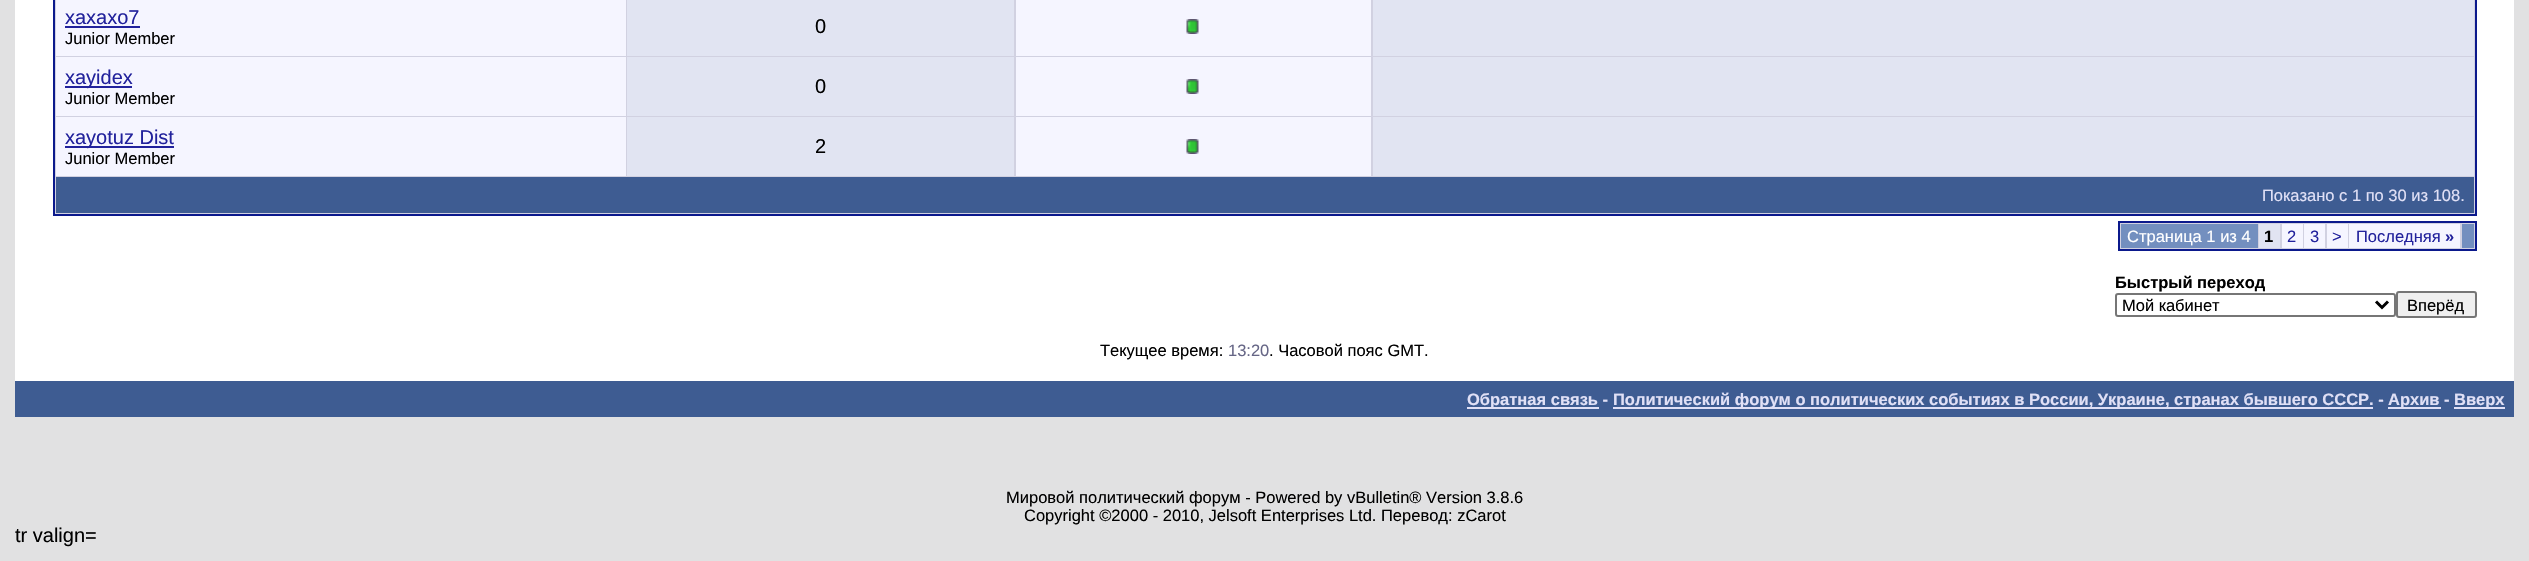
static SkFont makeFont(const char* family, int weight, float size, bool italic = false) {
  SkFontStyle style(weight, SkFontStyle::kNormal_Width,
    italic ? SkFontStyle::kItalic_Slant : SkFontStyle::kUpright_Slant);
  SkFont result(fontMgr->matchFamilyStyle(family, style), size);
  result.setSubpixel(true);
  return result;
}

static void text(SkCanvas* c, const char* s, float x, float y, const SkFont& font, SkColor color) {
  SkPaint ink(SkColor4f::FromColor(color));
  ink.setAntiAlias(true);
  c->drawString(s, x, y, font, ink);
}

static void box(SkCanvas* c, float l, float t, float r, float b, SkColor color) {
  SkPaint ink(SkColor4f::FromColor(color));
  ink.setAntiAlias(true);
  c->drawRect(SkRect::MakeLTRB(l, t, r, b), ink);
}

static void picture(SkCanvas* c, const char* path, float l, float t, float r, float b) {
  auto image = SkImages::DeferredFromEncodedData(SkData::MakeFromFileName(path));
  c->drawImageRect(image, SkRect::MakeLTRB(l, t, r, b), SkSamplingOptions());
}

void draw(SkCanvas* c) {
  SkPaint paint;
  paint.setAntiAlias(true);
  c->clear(0xffe1e1e2);
  box(c, 15, 0, 2514, 381, 0xffffffff);
  paint.setColor(0xffd1d1e1);
  c->drawRect(SkRect::MakeLTRB(54, -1, 2476, 215), paint);
  paint.setStyle(SkPaint::kStroke_Style);
  paint.setStrokeWidth(2);
  paint.setColor(0xff0b198c);
  c->drawRect(SkRect::MakeLTRB(54, -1, 2476, 215), paint);
  box(c, 56, 0, 626, 56, 0xfff5f5ff);
  SkFont face1 = makeFont("Liberation Sans", 400, 20);
  text(c, "xaxaxo7", 65, 24, face1, 0xff22229c);
  box(c, 65, 26, 140, 28, 0xff22229c);
  SkFont face2 = makeFont("Liberation Sans", 400, 16.5f);
  text(c, "Junior Member", 65, 44, face2, 0xff000000);
  box(c, 627, 0, 1014, 56, 0xffe1e4f2);
  text(c, "0", 815, 33, face1, 0xff000000);
  box(c, 1016, 0, 1371, 56, 0xfff5f5ff);
  picture(c, "img_01.png", 1186, 19, 1199, 34);
  box(c, 1373, 0, 2474, 56, 0xffe1e4f2);
  box(c, 56, 57, 626, 116, 0xfff5f5ff);
  box(c, 65, 86, 132, 88, 0xff22229c);
  text(c, "xayidex", 65, 84, face1, 0xff22229c);
  text(c, "Junior Member", 65, 104, face2, 0xff000000);
  box(c, 627, 57, 1014, 116, 0xffe1e4f2);
  text(c, "0", 815, 93, face1, 0xff000000);
  box(c, 1016, 57, 1371, 116, 0xfff5f5ff);
  picture(c, "img_01.png", 1186, 79, 1199, 94);
  box(c, 1373, 57, 2474, 116, 0xffe1e4f2);
  box(c, 56, 117, 626, 176, 0xfff5f5ff);
  box(c, 65, 146, 174, 148, 0xff22229c);
  text(c, "xayotuz Dist", 65, 144, face1, 0xff22229c);
  text(c, "Junior Member", 65, 164, face2, 0xff000000);
  box(c, 627, 117, 1014, 176, 0xffe1e4f2);
  text(c, "2", 815, 153, face1, 0xff000000);
  box(c, 1016, 117, 1371, 176, 0xfff5f5ff);
  picture(c, "img_01.png", 1186, 139, 1199, 154);
  box(c, 1373, 117, 2474, 176, 0xffe1e4f2);
  box(c, 56, 177, 2474, 213, 0xff3e5c92);
  text(c, "Показано с 1 по 30 из 108.", 2262, 201, face2, 0xffe0e0f6);
  paint.setStyle(SkPaint::kFill_Style);
  paint.setColor(0xffd1d1e1);
  c->drawRect(SkRect::MakeLTRB(2119, 222, 2476, 250), paint);
  paint.setStyle(SkPaint::kStroke_Style);
  paint.setColor(0xff0b198c);
  c->drawRect(SkRect::MakeLTRB(2119, 222, 2476, 250), paint);
  box(c, 2121, 224, 2258, 248, 0xff738fbf);
  text(c, "Страница 1 из 4", 2127, 242, face2, 0xffffffff);
  box(c, 2259, 224, 2280, 248, 0xffe1e4f2);
  SkFont face3 = makeFont("Liberation Sans", 700, 16.5f);
  text(c, "1", 2264, 242, face3, 0xff000000);
  box(c, 2282, 224, 2303, 248, 0xfff5f5ff);
  text(c, "2", 2287, 242, face2, 0xff22229c);
  box(c, 2304, 224, 2325, 248, 0xfff5f5ff);
  text(c, "3", 2310, 242, face2, 0xff22229c);
  box(c, 2327, 224, 2348, 248, 0xfff5f5ff);
  text(c, ">", 2332, 242, face2, 0xff22229c);
  box(c, 2349, 224, 2460, 248, 0xfff5f5ff);
  text(c, "Последняя", 2356, 242, face2, 0xff22229c);
  text(c, "»", 2445, 242, face3, 0xff22229c);
  box(c, 2462, 224, 2474, 248, 0xff738fbf);
  text(c, "Быстрый переход", 2115, 288, face3, 0xff000000);
  paint.setColor(0xff767676);
  c->drawRoundRect(SkRect::MakeLTRB(2116, 294, 2395, 316), 2, 2, paint);
  paint.setStrokeWidth(3);
  paint.setColor(0xff000000);
  c->drawPath(SkPathBuilder().moveTo(2376, 301.5f).lineTo(2382, 307.5f).lineTo(2388, 301.5f).detach(), paint);
  text(c, "Мой кабинет", 2122, 311, face2, 0xff000000);
  paint.setStyle(SkPaint::kFill_Style);
  paint.setColor(0xffefefef);
  c->drawRoundRect(SkRect::MakeLTRB(2397, 292, 2476, 317), 2, 2, paint);
  paint.setStyle(SkPaint::kStroke_Style);
  paint.setStrokeWidth(2);
  paint.setColor(0xff767676);
  c->drawRoundRect(SkRect::MakeLTRB(2397, 292, 2476, 317), 2, 2, paint);
  text(c, "Вперёд", 2407, 311, face2, 0xff000000);
  text(c, "Текущее время:", 1100, 356, face2, 0xff000000);
  text(c, "13:20", 1228, 356, face2, 0xff666686);
  text(c, ". Часовой пояс GMT.", 1269, 356, face2, 0xff000000);
  box(c, 15, 381, 2514, 417, 0xff3e5c92);
  box(c, 1467, 407, 1599, 409, 0xffe0e0f6);
  text(c, "Обратная связь -", 1467, 405, face3, 0xffe0e0f6);
  box(c, 1613, 407, 2373, 409, 0xffe0e0f6);
  text(c, "Политический форум о политических событиях в России, Украине, странах бывшего СССР. -", 1613, 405, face3, 0xffe0e0f6);
  box(c, 2388, 407, 2441, 409, 0xffe0e0f6);
  text(c, "Архив -", 2388, 405, face3, 0xffe0e0f6);
  box(c, 2454, 407, 2505, 409, 0xffe0e0f6);
  text(c, "Вверх", 2454, 405, face3, 0xffe0e0f6);
  text(c, "Мировой политический форум - Powered by vBulletin® Version 3.8.6", 1006, 503, face2, 0xff000000);
  text(c, "Copyright ©2000 - 2010, Jelsoft Enterprises Ltd. Перевод: zCarot", 1024, 521, face2, 0xff000000);
  text(c, "tr valign=", 15, 542, face1, 0xff000000);
}
